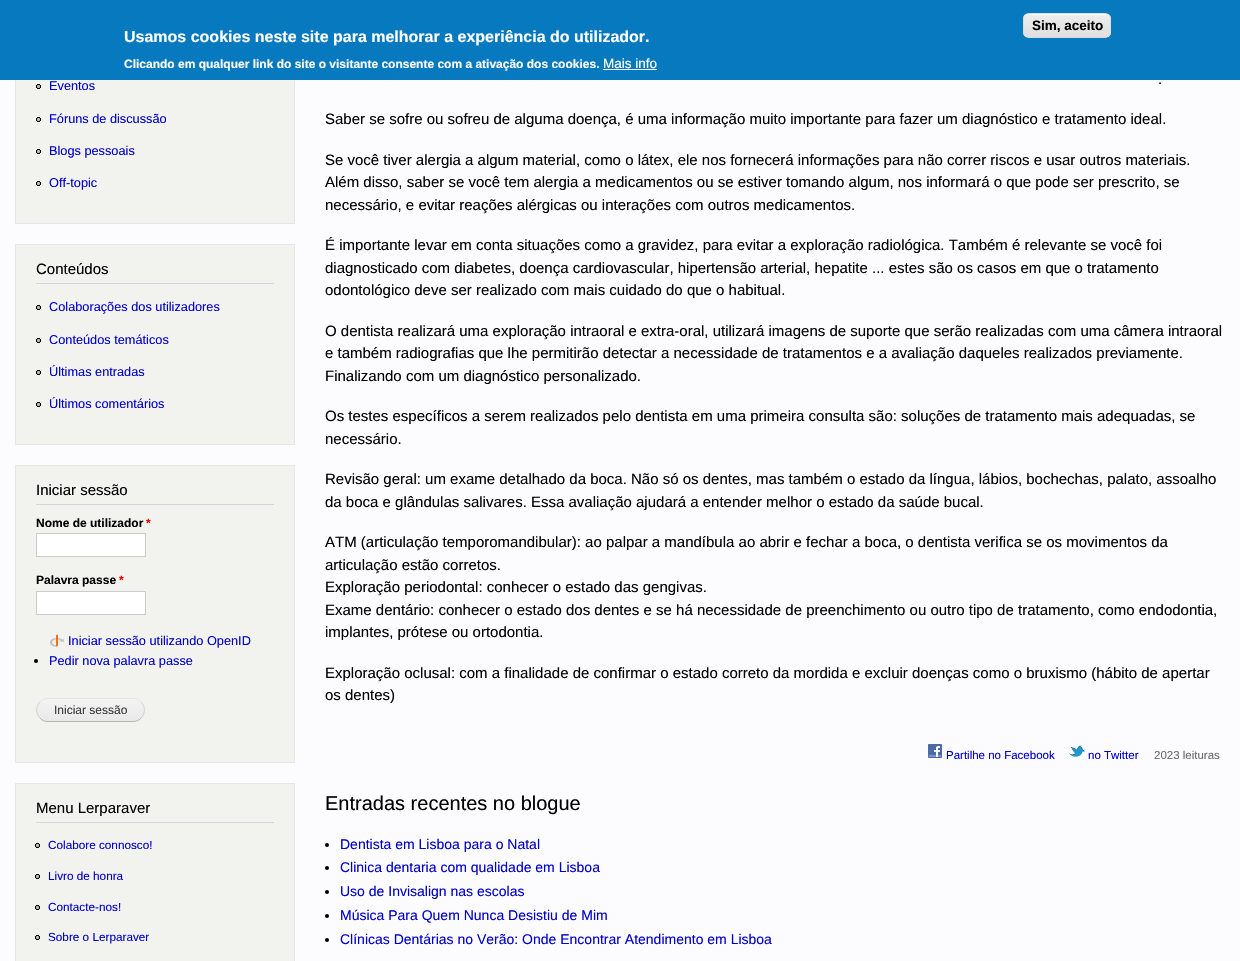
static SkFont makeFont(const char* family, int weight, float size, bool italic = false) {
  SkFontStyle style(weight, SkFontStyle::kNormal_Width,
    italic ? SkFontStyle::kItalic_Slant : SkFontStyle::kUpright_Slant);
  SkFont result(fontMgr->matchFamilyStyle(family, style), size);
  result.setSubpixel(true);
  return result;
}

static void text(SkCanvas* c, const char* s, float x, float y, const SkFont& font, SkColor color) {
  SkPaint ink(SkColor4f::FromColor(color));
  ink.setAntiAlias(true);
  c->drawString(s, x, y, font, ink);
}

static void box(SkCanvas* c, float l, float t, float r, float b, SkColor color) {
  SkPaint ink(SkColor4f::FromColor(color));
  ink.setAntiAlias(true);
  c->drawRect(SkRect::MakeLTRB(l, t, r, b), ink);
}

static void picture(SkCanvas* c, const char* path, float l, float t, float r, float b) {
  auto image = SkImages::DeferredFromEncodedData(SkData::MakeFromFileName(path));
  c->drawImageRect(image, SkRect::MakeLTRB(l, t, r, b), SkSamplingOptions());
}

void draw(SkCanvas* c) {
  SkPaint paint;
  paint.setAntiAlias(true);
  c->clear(0xfffcfcff);
  box(c, 16, 80, 294, 223, 0xfff2f2ef);
  paint.setStyle(SkPaint::kStroke_Style);
  paint.setStrokeWidth(1);
  paint.setColor(0xffe6e6e6);
  c->drawRect(SkRect::MakeLTRB(15.5f, -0.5f, 294.5f, 223.5f), paint);
  box(c, 0, 0, 1240, 80, 0xff0779bf);
  c->save();
  c->clipPath(SkPathBuilder().moveTo(1029, 13).lineTo(1105, 13).cubicTo(1108.5f, 13, 1111, 15.5f, 1111, 19).lineTo(1111, 32).cubicTo(1111, 35.5f, 1108.5f, 38, 1105, 38).lineTo(1029, 38).cubicTo(1025.5f, 38, 1023, 35.5f, 1023, 32).lineTo(1023, 19).cubicTo(1023, 15.5f, 1025.5f, 13, 1029, 13).close().detach(), true);
  paint.setStyle(SkPaint::kFill_Style);
  {
    const SkColor colors[] = {0xffededed, 0xffdfdfdf};
    const float stops[] = {0.05f, 1};
    const SkPoint ends[] = {{1067, 14}, {1067, 37}};
    paint.setShader(SkGradientShader::MakeLinear(ends, colors, stops, 2, SkTileMode::kClamp));
    paint.setAlpha(255);
  }
  c->drawRect(SkRect::MakeLTRB(1023, 14, 1111, 37), paint);
  c->restore();
  paint.setShader(nullptr);
  paint.setColor(0xffffffff);
  c->drawPath(SkPathBuilder().moveTo(1029, 15).lineTo(1105, 15).cubicTo(1108, 15, 1110, 17, 1110, 20).cubicTo(1110, 11, 1098, 14, 1092, 14).lineTo(1042, 14).cubicTo(1036, 14, 1024, 11, 1024, 20).cubicTo(1024, 17, 1026, 15, 1029, 15).close().detach(), paint);
  paint.setStyle(SkPaint::kStroke_Style);
  paint.setColor(0xffdcdcdc);
  c->drawRoundRect(SkRect::MakeLTRB(1023.5f, 13.5f, 1110.5f, 37.5f), 5.5f, 5.5f, paint);
  SkFont face1 = makeFont("Liberation Sans", 700, 13.5f);
  text(c, "Sim, aceito", 1032, 30, face1, 0xff000000);
  SkFont face2 = makeFont("Liberation Sans", 700, 16);
  text(c, "Usamos cookies neste site para melhorar a experiência do utilizador.", 124, 42, face2, 0xffffffff);
  SkFont face3 = makeFont("Liberation Sans", 700, 12);
  text(c, "Clicando em qualquer link do site o visitante consente com a ativação dos cookies.", 124, 68, face3, 0xffffffff);
  SkFont face4 = makeFont("Liberation Sans", 400, 13.5f);
  text(c, "Mais info", 603, 68, face4, 0xffffffff);
  box(c, 603, 69, 657, 70, 0xffffffff);
  picture(c, "img_01.png", 36, 84, 41, 89);
  SkFont face5 = makeFont("Liberation Sans", 400, 12.75f);
  text(c, "Eventos", 49, 90, face5, 0xff0000cc);
  picture(c, "img_01.png", 36, 117, 41, 122);
  text(c, "Fóruns de discussão", 49, 123, face5, 0xff0000cc);
  picture(c, "img_01.png", 36, 149, 41, 154);
  text(c, "Blogs pessoais", 49, 155, face5, 0xff0000cc);
  picture(c, "img_01.png", 36, 181, 41, 186);
  text(c, "Off-topic", 49, 187, face5, 0xff0000cc);
  paint.setStyle(SkPaint::kFill_Style);
  paint.setColor(0xfff2f2ef);
  c->drawRect(SkRect::MakeLTRB(15.5f, 244.5f, 294.5f, 444.5f), paint);
  paint.setStyle(SkPaint::kStroke_Style);
  paint.setColor(0xffe6e6e6);
  c->drawRect(SkRect::MakeLTRB(15.5f, 244.5f, 294.5f, 444.5f), paint);
  box(c, 36, 283, 274, 284, 0xffd6d6d6);
  SkFont face6 = makeFont("Liberation Sans", 400, 15);
  text(c, "Conteúdos", 36, 274, face6, 0xff000000);
  picture(c, "img_01.png", 36, 305, 41, 310);
  text(c, "Colaborações dos utilizadores", 49, 311, face5, 0xff0000cc);
  picture(c, "img_01.png", 36, 338, 41, 343);
  text(c, "Conteúdos temáticos", 49, 344, face5, 0xff0000cc);
  picture(c, "img_01.png", 36, 370, 41, 375);
  text(c, "Últimas entradas", 49, 376, face5, 0xff0000cc);
  picture(c, "img_01.png", 36, 402, 41, 407);
  text(c, "Últimos comentários", 49, 408, face5, 0xff0000cc);
  paint.setStyle(SkPaint::kFill_Style);
  paint.setColor(0xfff2f2ef);
  c->drawRect(SkRect::MakeLTRB(15.5f, 465.5f, 294.5f, 762.5f), paint);
  paint.setStyle(SkPaint::kStroke_Style);
  paint.setColor(0xffe6e6e6);
  c->drawRect(SkRect::MakeLTRB(15.5f, 465.5f, 294.5f, 762.5f), paint);
  box(c, 36, 504, 274, 505, 0xffd6d6d6);
  text(c, "Iniciar sessão", 36, 495, face6, 0xff000000);
  text(c, "Nome de utilizador", 36, 527, face3, 0xff000000);
  text(c, "*", 146, 527, face3, 0xffff0000);
  paint.setStyle(SkPaint::kFill_Style);
  paint.setColor(0xffffffff);
  c->drawRect(SkRect::MakeLTRB(36.5f, 533.5f, 145.5f, 556.5f), paint);
  paint.setStyle(SkPaint::kStroke_Style);
  paint.setColor(0xffcccccc);
  c->drawRect(SkRect::MakeLTRB(36.5f, 533.5f, 145.5f, 556.5f), paint);
  text(c, "Palavra passe", 36, 584, face3, 0xff000000);
  text(c, "*", 119, 584, face3, 0xffff0000);
  paint.setStyle(SkPaint::kFill_Style);
  paint.setColor(0xffffffff);
  c->drawRect(SkRect::MakeLTRB(36.5f, 591.5f, 145.5f, 614.5f), paint);
  paint.setStyle(SkPaint::kStroke_Style);
  paint.setColor(0xffcccccc);
  c->drawRect(SkRect::MakeLTRB(36.5f, 591.5f, 145.5f, 614.5f), paint);
  picture(c, "img_02.png", 50, 634, 64, 647);
  text(c, "Iniciar sessão utilizando OpenID", 68, 645, face5, 0xff0000cc);
  paint.setStyle(SkPaint::kFill_Style);
  paint.setColor(0xff000000);
  c->drawCircle(36, 661, 2, paint);
  text(c, "Pedir nova palavra passe", 49, 665, face5, 0xff0000cc);
  picture(c, "img_03.png", 36, 699, 145, 722);
  paint.setStyle(SkPaint::kStroke_Style);
  paint.setColor(0xffe4e4e4);
  c->drawPath(SkPathBuilder().moveTo(40, 702).cubicTo(42, 699.5f, 45, 698.5f, 48, 698.5f).lineTo(133, 698.5f).cubicTo(136, 698.5f, 139, 699.5f, 141, 702).detach(), paint);
  paint.setColor(0xffd2d2d2);
  c->drawPath(SkPathBuilder().moveTo(141, 702).cubicTo(145.5f, 706.5f, 145.5f, 713.5f, 141, 718).detach(), paint);
  paint.setColor(0xffb4b4b4);
  c->drawPath(SkPathBuilder().moveTo(141, 718).cubicTo(139, 720.5f, 136, 721.5f, 133, 721.5f).lineTo(48, 721.5f).cubicTo(45, 721.5f, 42, 720.5f, 40, 718).detach(), paint);
  paint.setColor(0xffd2d2d2);
  c->drawPath(SkPathBuilder().moveTo(40, 718).cubicTo(35.5f, 713.5f, 35.5f, 706.5f, 40, 702).detach(), paint);
  SkFont face7 = makeFont("Liberation Sans", 400, 12);
  text(c, "Iniciar sessão", 54, 714, face7, 0xff3a3a3a);
  paint.setStyle(SkPaint::kFill_Style);
  paint.setColor(0xfff2f2ef);
  c->drawRect(SkRect::MakeLTRB(15.5f, 783.5f, 294.5f, 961.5f), paint);
  paint.setStyle(SkPaint::kStroke_Style);
  paint.setColor(0xffe6e6e6);
  c->drawRect(SkRect::MakeLTRB(15.5f, 783.5f, 294.5f, 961.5f), paint);
  box(c, 36, 822, 274, 823, 0xffd6d6d6);
  text(c, "Menu Lerparaver", 36, 813, face6, 0xff000000);
  picture(c, "img_01.png", 35, 843, 40, 848);
  SkFont face8 = makeFont("Liberation Sans", 400, 11.75f);
  text(c, "Colabore connosco!", 48, 849, face8, 0xff0000cc);
  picture(c, "img_01.png", 35, 874, 40, 879);
  text(c, "Livro de honra", 48, 880, face8, 0xff0000cc);
  picture(c, "img_01.png", 35, 905, 40, 910);
  text(c, "Contacte-nos!", 48, 911, face8, 0xff0000cc);
  picture(c, "img_01.png", 35, 935, 40, 940);
  text(c, "Sobre o Lerparaver", 48, 941, face8, 0xff0000cc);
  text(c, ".", 1158, 84, face6, 0xff000000);
  text(c, "Saber se sofre ou sofreu de alguma doença, é uma informação muito importante para fazer um diagnóstico e tratamento ideal.", 325, 124, face6, 0xff000000);
  text(c, "Se você tiver alergia a algum material, como o látex, ele nos fornecerá informações para não correr riscos e usar outros materiais.", 325, 165, face6, 0xff000000);
  text(c, "Além disso, saber se você tem alergia a medicamentos ou se estiver tomando algum, nos informará o que pode ser prescrito, se", 325, 187, face6, 0xff000000);
  text(c, "necessário, e evitar reações alérgicas ou interações com outros medicamentos.", 325, 210, face6, 0xff000000);
  text(c, "É importante levar em conta situações como a gravidez, para evitar a exploração radiológica. Também é relevante se você foi", 325, 250, face6, 0xff000000);
  text(c, "diagnosticado com diabetes, doença cardiovascular, hipertensão arterial, hepatite ... estes são os casos em que o tratamento", 325, 273, face6, 0xff000000);
  text(c, "odontológico deve ser realizado com mais cuidado do que o habitual.", 325, 295, face6, 0xff000000);
  text(c, "O dentista realizará uma exploração intraoral e extra-oral, utilizará imagens de suporte que serão realizadas com uma câmera intraoral", 325, 336, face6, 0xff000000);
  text(c, "e também radiografias que lhe permitirão detectar a necessidade de tratamentos e a avaliação daqueles realizados previamente.", 325, 358, face6, 0xff000000);
  text(c, "Finalizando com um diagnóstico personalizado.", 325, 381, face6, 0xff000000);
  text(c, "Os testes específicos a serem realizados pelo dentista em uma primeira consulta são: soluções de tratamento mais adequadas, se", 325, 421, face6, 0xff000000);
  text(c, "necessário.", 325, 444, face6, 0xff000000);
  text(c, "Revisão geral: um exame detalhado da boca. Não só os dentes, mas também o estado da língua, lábios, bochechas, palato, assoalho", 325, 484, face6, 0xff000000);
  text(c, "da boca e glândulas salivares. Essa avaliação ajudará a entender melhor o estado da saúde bucal.", 325, 507, face6, 0xff000000);
  text(c, "ATM (articulação temporomandibular): ao palpar a mandíbula ao abrir e fechar a boca, o dentista verifica se os movimentos da", 325, 547, face6, 0xff000000);
  text(c, "articulação estão corretos.", 325, 570, face6, 0xff000000);
  text(c, "Exploração periodontal: conhecer o estado das gengivas.", 325, 592, face6, 0xff000000);
  text(c, "Exame dentário: conhecer o estado dos dentes e se há necessidade de preenchimento ou outro tipo de tratamento, como endodontia,", 325, 615, face6, 0xff000000);
  text(c, "implantes, prótese ou ortodontia.", 325, 637, face6, 0xff000000);
  text(c, "Exploração oclusal: com a finalidade de confirmar o estado correto da mordida e excluir doenças como o bruxismo (hábito de apertar", 325, 678, face6, 0xff000000);
  text(c, "os dentes)", 325, 700, face6, 0xff000000);
  picture(c, "img_04.png", 928, 744, 942, 758);
  SkFont face9 = makeFont("Liberation Sans", 400, 11.5f);
  text(c, "Partilhe no Facebook", 946, 759, face9, 0xff0000cc);
  picture(c, "img_05.png", 1069, 745, 1085, 757);
  text(c, "no Twitter", 1088, 759, face9, 0xff0000cc);
  text(c, "2023 leituras", 1154, 759, face9, 0xff68696b);
  SkFont face10 = makeFont("Liberation Sans", 400, 20);
  text(c, "Entradas recentes no blogue", 325, 810, face10, 0xff000000);
  paint.setStyle(SkPaint::kFill_Style);
  paint.setColor(0xff000000);
  c->drawCircle(327, 845, 2, paint);
  SkFont face11 = makeFont("Liberation Sans", 400, 14);
  text(c, "Dentista em Lisboa para o Natal", 340, 849, face11, 0xff0000cc);
  c->drawCircle(327, 868, 2, paint);
  text(c, "Clinica dentaria com qualidade em Lisboa", 340, 872, face11, 0xff0000cc);
  c->drawCircle(327, 892, 2, paint);
  text(c, "Uso de Invisalign nas escolas", 340, 896, face11, 0xff0000cc);
  c->drawCircle(327, 916, 2, paint);
  text(c, "Música Para Quem Nunca Desistiu de Mim", 340, 920, face11, 0xff0000cc);
  c->drawCircle(327, 940, 2, paint);
  text(c, "Clínicas Dentárias no Verão: Onde Encontrar Atendimento em Lisboa", 340, 944, face11, 0xff0000cc);
}
